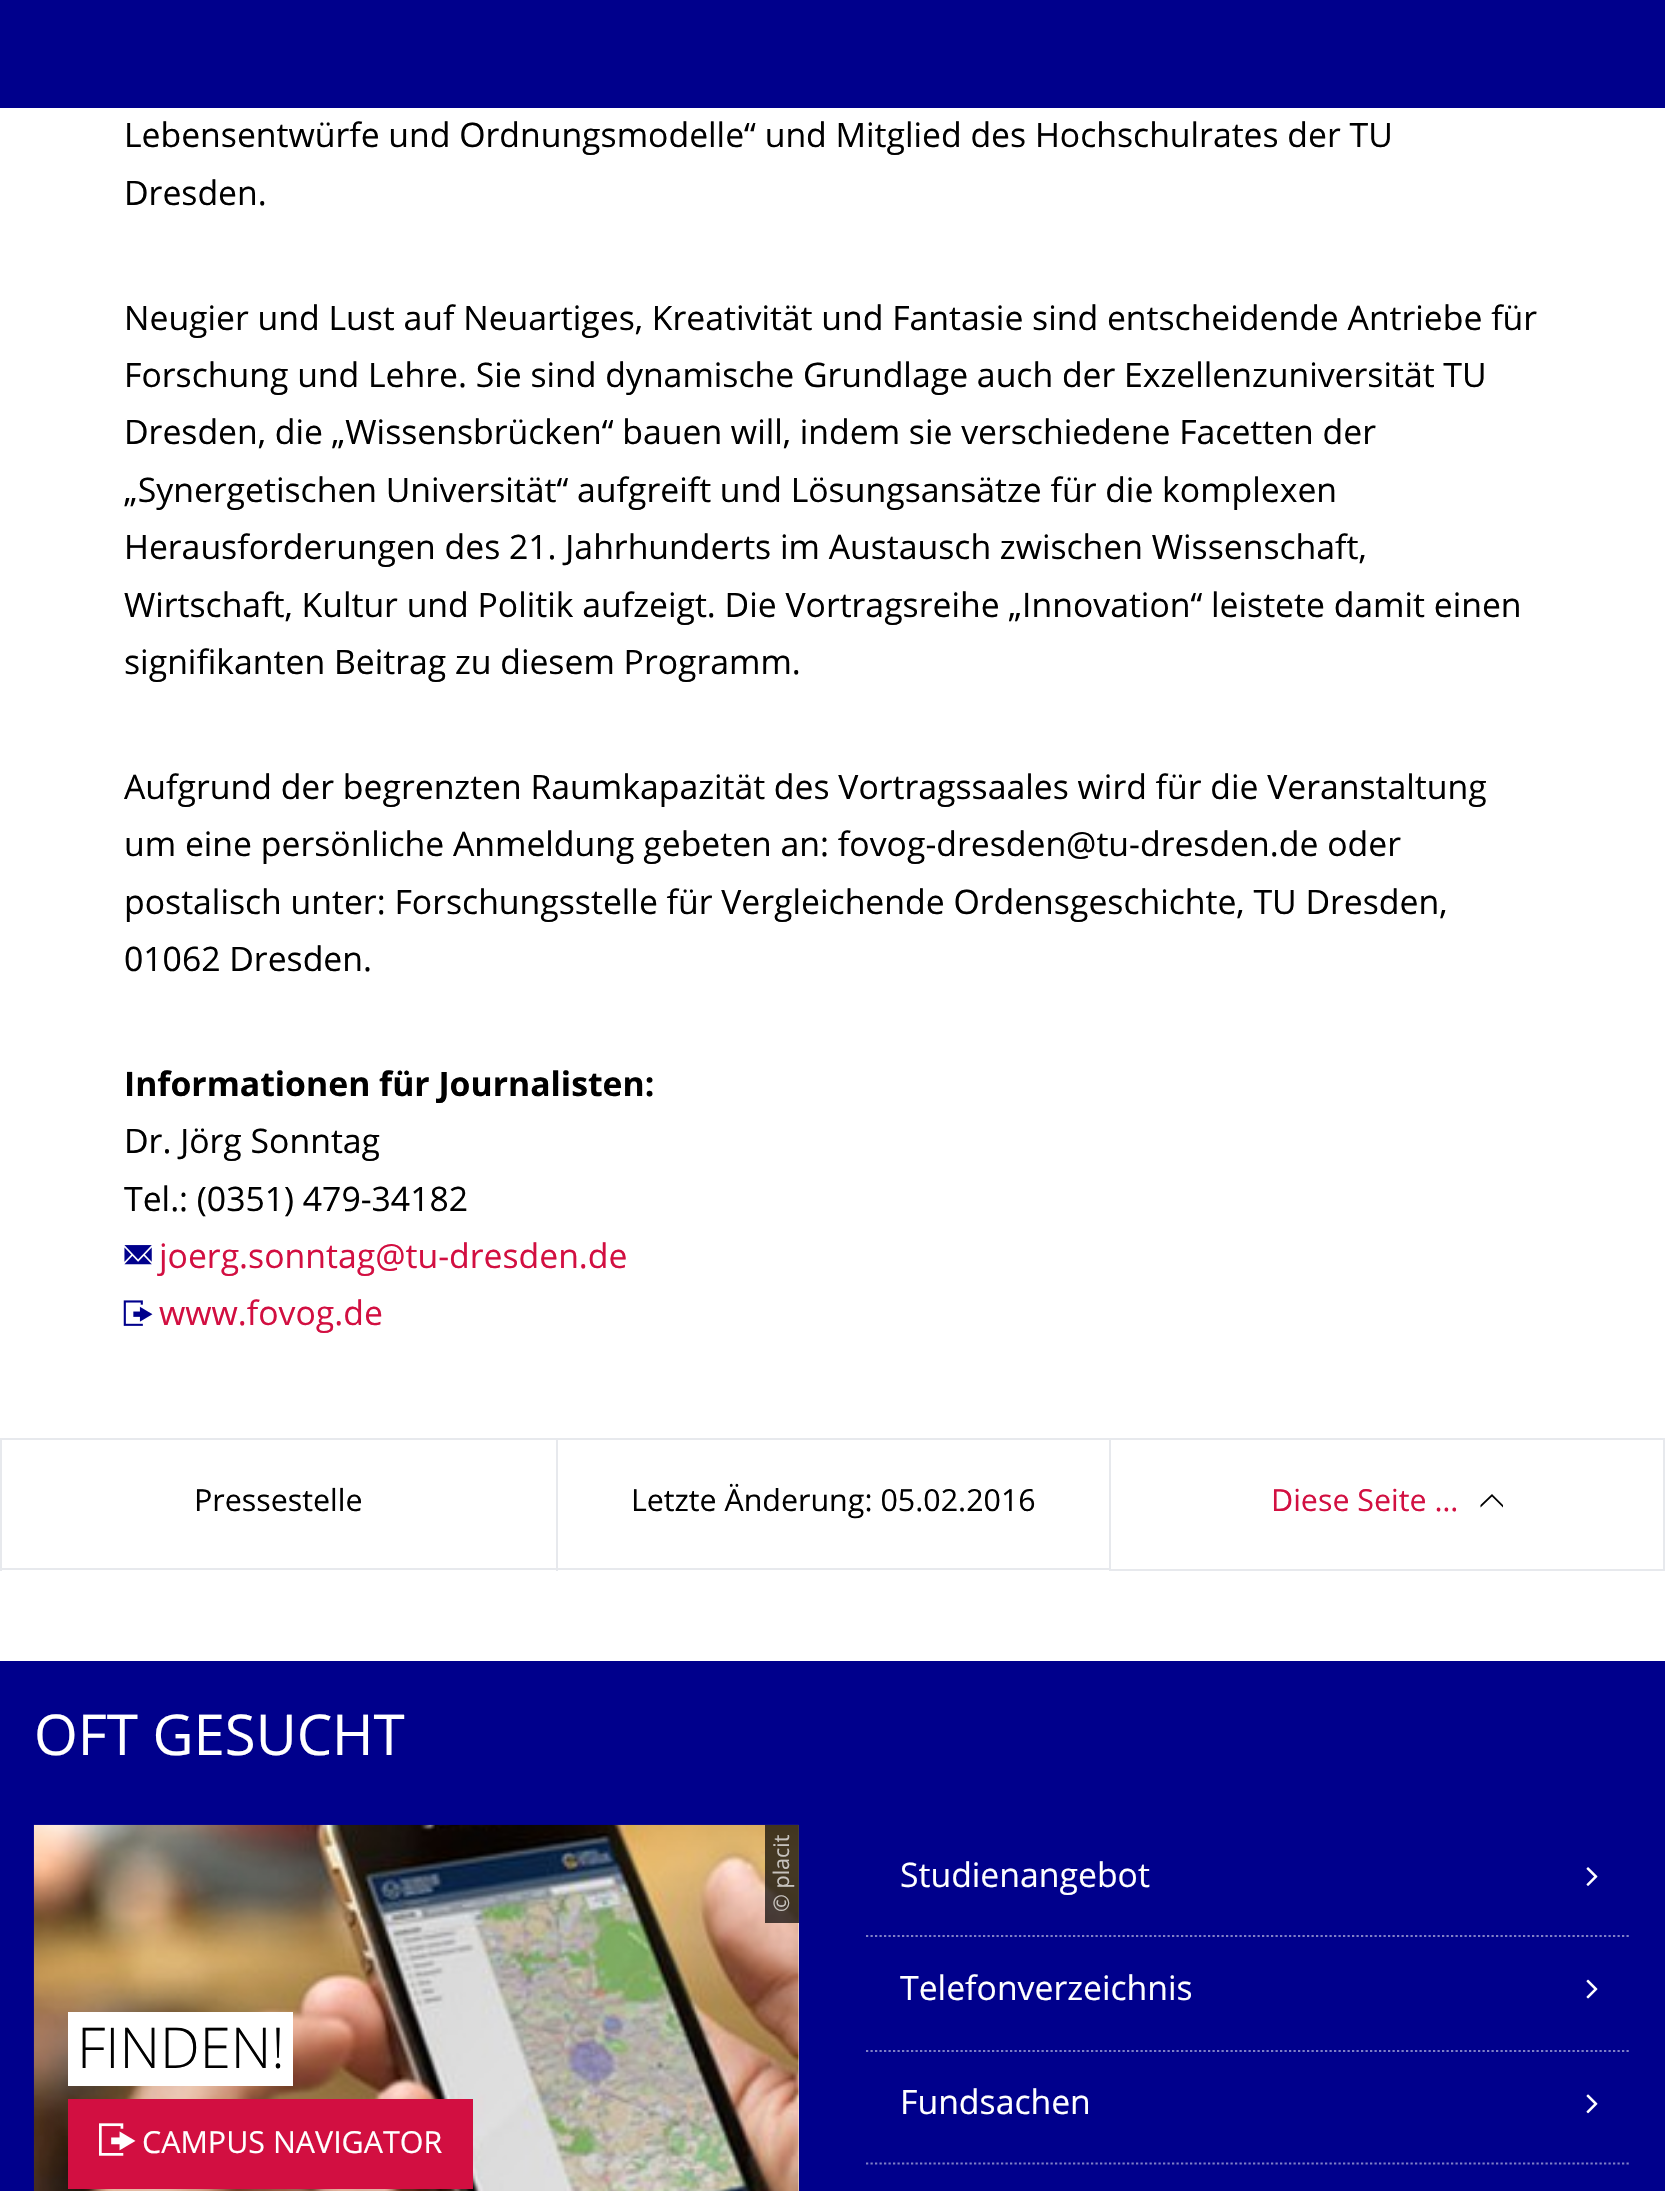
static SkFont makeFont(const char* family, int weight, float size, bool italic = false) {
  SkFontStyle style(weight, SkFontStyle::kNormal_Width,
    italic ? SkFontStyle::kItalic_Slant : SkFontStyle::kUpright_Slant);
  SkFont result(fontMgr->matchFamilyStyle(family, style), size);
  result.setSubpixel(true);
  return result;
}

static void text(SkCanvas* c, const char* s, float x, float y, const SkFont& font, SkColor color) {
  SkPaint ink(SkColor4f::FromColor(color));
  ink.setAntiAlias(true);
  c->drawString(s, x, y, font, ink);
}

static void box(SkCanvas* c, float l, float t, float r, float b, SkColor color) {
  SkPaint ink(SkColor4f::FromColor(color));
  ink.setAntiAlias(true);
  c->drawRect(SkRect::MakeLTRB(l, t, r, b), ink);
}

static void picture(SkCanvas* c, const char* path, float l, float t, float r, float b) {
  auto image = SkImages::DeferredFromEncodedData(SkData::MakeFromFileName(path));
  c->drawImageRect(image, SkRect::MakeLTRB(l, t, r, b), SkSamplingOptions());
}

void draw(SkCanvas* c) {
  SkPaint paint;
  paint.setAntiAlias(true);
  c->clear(0xffffffff);
  box(c, 0, 0, 1665, 108, 0xff00008c);
  SkFont face1 = makeFont("Open Sans", 400, 33.75f);
  text(c, "Lebensentwürfe und Ordnungsmodelle“ und Mitglied des Hochschulrates der TU", 124, 147, face1, 0xff000000);
  text(c, "Dresden.", 124, 205, face1, 0xff000000);
  text(c, "Neugier und Lust auf Neuartiges, Kreativität und Fantasie sind entscheidende Antriebe für", 124, 330, face1, 0xff000000);
  text(c, "Forschung und Lehre. Sie sind dynamische Grundlage auch der Exzellenzuniversität TU", 124, 387, face1, 0xff000000);
  text(c, "Dresden, die „Wissensbrücken“ bauen will, indem sie verschiedene Facetten der", 124, 444, face1, 0xff000000);
  text(c, "„Synergetischen Universität“ aufgreift und Lösungsansätze für die komplexen", 124, 502, face1, 0xff000000);
  text(c, "Herausforderungen des 21. Jahrhunderts im Austausch zwischen Wissenschaft,", 124, 559, face1, 0xff000000);
  text(c, "Wirtschaft, Kultur und Politik aufzeigt. Die Vortragsreihe „Innovation“ leistete damit einen", 124, 617, face1, 0xff000000);
  text(c, "signifikanten Beitrag zu diesem Programm.", 124, 674, face1, 0xff000000);
  text(c, "Aufgrund der begrenzten Raumkapazität des Vortragssaales wird für die Veranstaltung", 124, 799, face1, 0xff000000);
  text(c, "um eine persönliche Anmeldung gebeten an: fovog-dresden@tu-dresden.de oder", 124, 856, face1, 0xff000000);
  text(c, "postalisch unter: Forschungsstelle für Vergleichende Ordensgeschichte, TU Dresden,", 124, 914, face1, 0xff000000);
  text(c, "01062 Dresden.", 124, 971, face1, 0xff000000);
  SkFont face2 = makeFont("Open Sans", 700, 33.75f);
  text(c, "Informationen für Journalisten:", 124, 1096, face2, 0xff000000);
  text(c, "Dr. Jörg Sonntag", 124, 1153, face1, 0xff000000);
  text(c, "Tel.: (0351) 479-34182", 124, 1211, face1, 0xff000000);
  picture(c, "img_01.png", 124, 1245, 152, 1265);
  text(c, "joerg.sonntag@tu-dresden.de", 159, 1268, face1, 0xffd20f41);
  picture(c, "img_02.png", 123, 1300, 153, 1326);
  text(c, "www.fovog.de", 159, 1325, face1, 0xffd20f41);
  box(c, 0, 1438, 1109, 1440, 0xffe7e9ed);
  box(c, 0, 1568, 1109, 1570, 0xffe7e9ed);
  box(c, 0, 1438, 2, 1571, 0xffe7e9ed);
  SkFont face3 = makeFont("Open Sans", 400, 30.4f);
  text(c, "Pressestelle", 194, 1511, face3, 0xff000000);
  box(c, 556, 1438, 558, 1571, 0xffe7e9ed);
  text(c, "Letzte Änderung: 05.02.2016", 631, 1511, face3, 0xff000000);
  paint.setStyle(SkPaint::kStroke_Style);
  paint.setStrokeWidth(2);
  paint.setColor(0xffe7e9ed);
  c->drawRect(SkRect::MakeLTRB(1110, 1439, 1664, 1570), paint);
  text(c, "Diese Seite …", 1271, 1511, face3, 0xffd20f41);
  paint.setStyle(SkPaint::kFill_Style);
  paint.setColor(0xff000000);
  c->drawPath(SkPathBuilder().moveTo(1503, 1507.5f).lineTo(1503, 1505).lineTo(1492, 1494).lineTo(1480.5f, 1505).lineTo(1480.5f, 1507.5f).lineTo(1492, 1496.5f).close().detach(), paint);
  box(c, 0, 1661, 1665, 2191, 0xff00008c);
  SkFont face4 = makeFont("Open Sans", 400, 56.25f);
  text(c, "OFT GESUCHT", 34, 1755, face4, 0xffffffff);
  box(c, 798, 1825, 799, 2191, 0xffffffff);
  picture(c, "img_03.png", 33, 1824, 799, 2191);
  box(c, 765, 1825, 799, 1923, 0xb3000000);
  SkFont face5 = makeFont("Open Sans", 400, 21.5f);
  c->save();
  c->rotate(-90, 789, 1912);
  text(c, "© placit", 789, 1912, face5, 0xffc7c3be);
  c->restore();
  box(c, 68, 2012, 293, 2086, 0xffffffff);
  SkFont face6 = makeFont("Open Sans", 300, 56.25f);
  text(c, "FINDEN!", 77, 2068, face6, 0xff000000);
  box(c, 68, 2099, 473, 2189, 0xffd20f41);
  picture(c, "img_04.png", 99, 2123, 136, 2156);
  text(c, "CAMPUS NAVIGATOR", 142, 2153, face3, 0xffffffff);
  paint.setStyle(SkPaint::kStroke_Style);
  paint.setStrokeWidth(2.2f);
  paint.setColor(0xff8080c6);
  paint.setPathEffect(SkDashPathEffect::Make({{2.25f, 2.25f}}, 0));
  c->drawPath(SkPathBuilder().moveTo(866, 1936).lineTo(1631, 1936).detach(), paint);
  paint.setPathEffect(nullptr);
  text(c, "Studienangebot", 900, 1887, face1, 0xffffffff);
  picture(c, "img_05.png", 1586, 1867, 1598, 1886);
  paint.setPathEffect(SkDashPathEffect::Make({{2.25f, 2.25f}}, 0));
  c->drawPath(SkPathBuilder().moveTo(866, 2051).lineTo(1631, 2051).detach(), paint);
  paint.setPathEffect(nullptr);
  text(c, "Telefonverzeichnis", 900, 2000, face1, 0xffffffff);
  picture(c, "img_06.png", 1586, 1979, 1598, 1999);
  paint.setPathEffect(SkDashPathEffect::Make({{2.25f, 2.25f}}, 0));
  c->drawPath(SkPathBuilder().moveTo(866, 2163.5f).lineTo(1631, 2163.5f).detach(), paint);
  paint.setPathEffect(nullptr);
  text(c, "Fundsachen", 900, 2114, face1, 0xffffffff);
  picture(c, "img_07.png", 1586, 2094, 1598, 2114);
}
